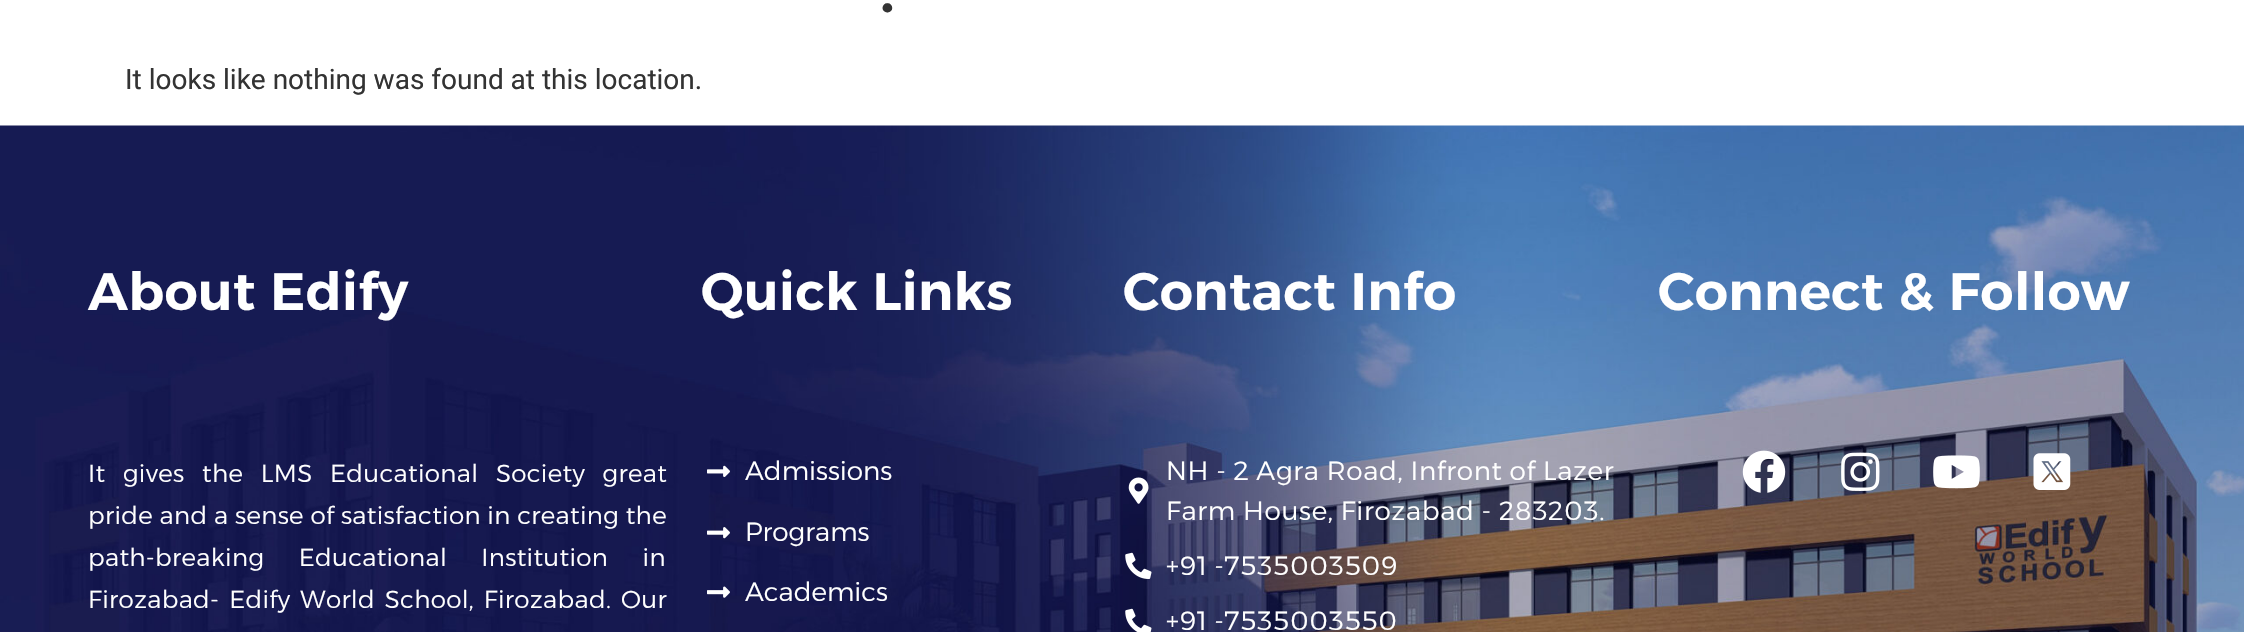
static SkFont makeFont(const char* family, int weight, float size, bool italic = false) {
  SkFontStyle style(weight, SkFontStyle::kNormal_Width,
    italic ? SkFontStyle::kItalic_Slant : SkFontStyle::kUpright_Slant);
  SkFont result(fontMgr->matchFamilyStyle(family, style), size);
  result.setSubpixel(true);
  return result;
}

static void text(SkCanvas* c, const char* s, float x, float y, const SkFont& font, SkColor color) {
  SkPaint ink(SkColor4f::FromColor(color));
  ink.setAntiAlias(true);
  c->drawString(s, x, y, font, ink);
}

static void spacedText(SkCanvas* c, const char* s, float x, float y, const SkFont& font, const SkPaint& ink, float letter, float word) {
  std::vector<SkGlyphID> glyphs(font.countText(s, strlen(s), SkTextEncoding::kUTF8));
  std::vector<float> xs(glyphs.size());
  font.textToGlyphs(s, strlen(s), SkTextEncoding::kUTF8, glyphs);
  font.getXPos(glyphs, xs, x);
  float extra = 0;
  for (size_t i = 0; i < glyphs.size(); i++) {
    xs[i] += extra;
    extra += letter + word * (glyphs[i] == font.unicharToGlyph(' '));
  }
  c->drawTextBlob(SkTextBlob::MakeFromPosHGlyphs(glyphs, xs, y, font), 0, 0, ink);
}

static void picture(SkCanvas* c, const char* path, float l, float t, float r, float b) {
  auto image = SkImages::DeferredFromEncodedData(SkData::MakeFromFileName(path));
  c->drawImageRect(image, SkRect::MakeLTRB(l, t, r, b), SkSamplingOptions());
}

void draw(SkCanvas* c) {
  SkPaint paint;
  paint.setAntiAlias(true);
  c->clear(0xffffffff);
  SkFont face1 = makeFont("Roboto", 500, 70);
  text(c, ".", 878, 12, face1, 0xff333333);
  SkFont face2 = makeFont("Roboto", 400, 28);
  text(c, "It looks like nothing was found at this location.", 125, 89, face2, 0xff333333);
  picture(c, "img_01.png", 0, 125, 2244, 632);
  SkFont face3 = makeFont("Alexandria", 600, 52.5f);
  paint.setColor(0xffffffff);
  spacedText(c, "About Edify", 88, 310, face3, paint, 0.35f, 0);
  SkFont face4 = makeFont("Alexandria", 300, 24.5f);
  spacedText(c, "It gives the LMS Educational Society great", 88, 482, face4, paint, 0.35f, 11.25f);
  spacedText(c, "pride and a sense of satisfaction in creating the", 88, 524, face4, paint, 0.35f, 0.25f);
  spacedText(c, "path-breaking Educational Institution in", 88, 566, face4, paint, 0.35f, 28);
  spacedText(c, "Firozabad- Edify World School, Firozabad. Our", 88, 608, face4, paint, 0.35f, 3.5f);
  spacedText(c, "Quick Links", 701, 310, face3, paint, 0.35f, 0);
  picture(c, "img_02.png", 707, 465, 730, 477);
  SkFont face5 = makeFont("Alexandria", 300, 26.25f);
  text(c, "Admissions", 745, 480, face5, 0xffffffff);
  picture(c, "img_03.png", 707, 527, 730, 539);
  text(c, "Programs", 745, 541, face5, 0xffffffff);
  picture(c, "img_04.png", 707, 586, 730, 598);
  text(c, "Academics", 745, 601, face5, 0xffffffff);
  spacedText(c, "Contact Info", 1123, 310, face3, paint, 0.35f, 0);
  picture(c, "img_05.png", 1128, 477, 1149, 504);
  spacedText(c, "NH - 2 Agra Road, Infront of Lazer", 1166, 480, face5, paint, 0.7f, 0);
  spacedText(c, "Farm House, Firozabad - 283203.", 1166, 520, face5, paint, 0.7f, 0);
  picture(c, "img_06.png", 1125, 552, 1152, 579);
  spacedText(c, "+91 -7535003509", 1166, 575, face5, paint, 0.7f, 0);
  picture(c, "img_07.png", 1125, 608, 1152, 632);
  spacedText(c, "+91 -7535003550", 1166, 630, face5, paint, 0.7f, 0);
  spacedText(c, "Connect & Follow", 1658, 310, face3, paint, 0.35f, 0);
  picture(c, "img_08.png", 1742, 450, 1786, 493);
  picture(c, "img_09.png", 1841, 452, 1880, 491);
  picture(c, "img_10.png", 1933, 455, 1980, 489);
  picture(c, "img_11.png", 2033, 453, 2071, 490);
}
